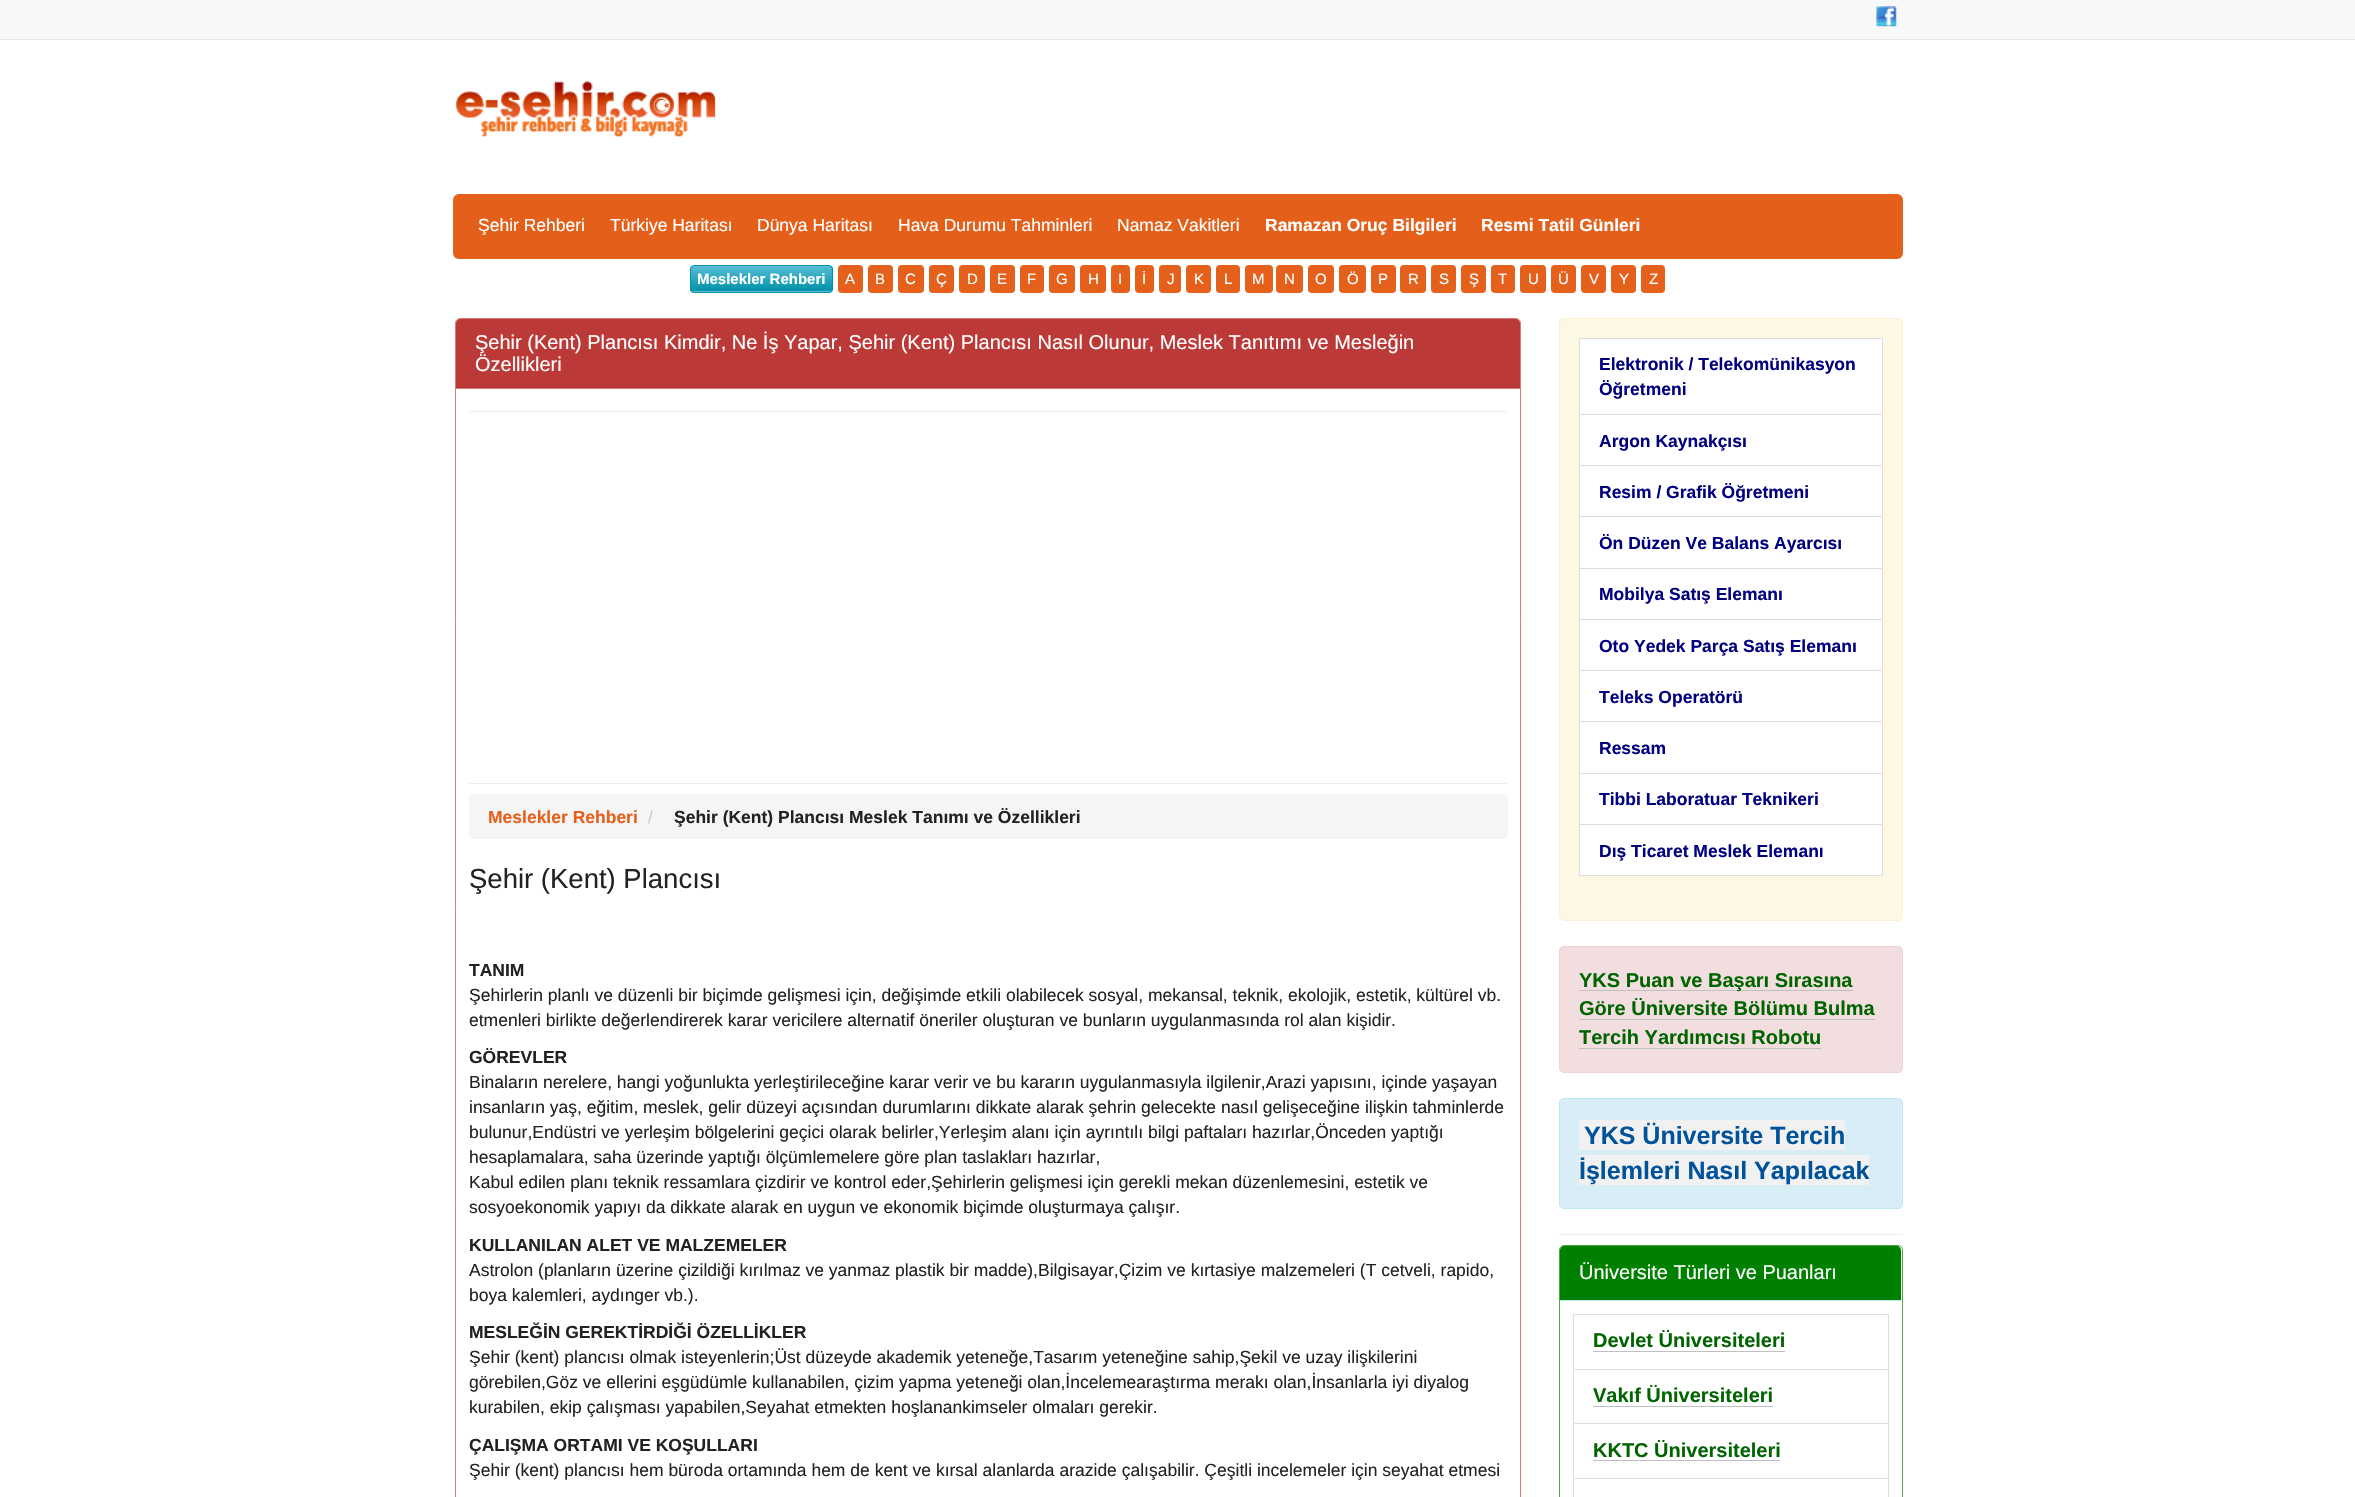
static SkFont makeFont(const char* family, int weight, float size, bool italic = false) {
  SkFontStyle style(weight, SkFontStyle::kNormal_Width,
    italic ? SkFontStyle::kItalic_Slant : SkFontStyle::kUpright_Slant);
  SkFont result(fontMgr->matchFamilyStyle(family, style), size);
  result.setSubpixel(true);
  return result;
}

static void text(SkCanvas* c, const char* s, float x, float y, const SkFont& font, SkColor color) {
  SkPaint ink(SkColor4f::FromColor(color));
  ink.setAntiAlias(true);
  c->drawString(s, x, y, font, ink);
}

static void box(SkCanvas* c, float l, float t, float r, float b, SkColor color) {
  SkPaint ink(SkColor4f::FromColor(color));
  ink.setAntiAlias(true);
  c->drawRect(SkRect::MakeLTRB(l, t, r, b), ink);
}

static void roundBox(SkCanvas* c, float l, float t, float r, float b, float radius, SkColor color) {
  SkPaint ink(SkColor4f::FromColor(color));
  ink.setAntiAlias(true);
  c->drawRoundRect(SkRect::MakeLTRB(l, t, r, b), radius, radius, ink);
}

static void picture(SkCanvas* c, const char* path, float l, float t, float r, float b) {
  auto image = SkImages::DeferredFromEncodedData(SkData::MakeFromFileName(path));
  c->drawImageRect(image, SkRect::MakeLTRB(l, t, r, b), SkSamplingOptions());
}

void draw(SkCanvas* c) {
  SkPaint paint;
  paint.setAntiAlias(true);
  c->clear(0xffffffff);
  box(c, 0, 0, 2355, 39, 0xfff8f8f8);
  box(c, 0, 39, 2355, 40, 0xffe7e7e7);
  picture(c, "img_01.png", 1876, 6, 1897, 27);
  picture(c, "img_02.png", 456, 81, 716, 137);
  roundBox(c, 453, 194, 1903, 259, 6, 0xffe4601a);
  SkFont face1 = makeFont("Liberation Sans", 400, 17.5f);
  text(c, "Şehir Rehberi", 478, 231, face1, 0xffffffff);
  text(c, "Türkiye Haritası", 610, 231, face1, 0xffffffff);
  text(c, "Dünya Haritası", 757, 231, face1, 0xffffffff);
  text(c, "Hava Durumu Tahminleri", 898, 231, face1, 0xffffffff);
  text(c, "Namaz Vakitleri", 1117, 231, face1, 0xffffffff);
  SkFont face2 = makeFont("Liberation Sans", 700, 17.5f);
  text(c, "Ramazan Oruç Bilgileri", 1265, 231, face2, 0xffffffff);
  text(c, "Resmi Tatil Günleri", 1481, 231, face2, 0xffffffff);
  c->save();
  c->clipPath(SkPathBuilder().moveTo(694, 265).lineTo(829, 265).cubicTo(831, 265, 833, 267, 833, 269).lineTo(833, 289).cubicTo(833, 291, 831, 293, 829, 293).lineTo(694, 293).cubicTo(692, 293, 690, 291, 690, 289).lineTo(690, 269).cubicTo(690, 267, 692, 265, 694, 265).close().detach(), true);
  {
    const SkColor colors[] = {0xff57bdd4, 0xff0092a9};
    const float stops[] = {0, 1};
    const SkPoint ends[] = {{691, 266}, {691, 291}};
    paint.setShader(SkGradientShader::MakeLinear(ends, colors, stops, 2, SkTileMode::kClamp));
    paint.setAlpha(255);
  }
  c->drawRect(SkRect::MakeLTRB(690, 266, 833, 291), paint);
  {
    const SkColor colors[] = {0xff57bdd4, 0xff0092a9};
    const float stops[] = {0, 1};
    const SkPoint ends[] = {{691, 291}, {691, 316}};
    paint.setShader(SkGradientShader::MakeLinear(ends, colors, stops, 2, SkTileMode::kClamp));
    paint.setAlpha(255);
  }
  c->drawRect(SkRect::MakeLTRB(690, 291, 833, 293), paint);
  c->restore();
  paint.setStyle(SkPaint::kStroke_Style);
  paint.setStrokeWidth(1);
  paint.setShader(nullptr);
  paint.setColor(0xff0293aa);
  c->drawRoundRect(SkRect::MakeLTRB(690.5f, 265.5f, 832.5f, 292.5f), 3.5f, 3.5f, paint);
  SkFont face3 = makeFont("Liberation Sans", 700, 15);
  text(c, "Meslekler Rehberi", 697, 284, face3, 0xffffffff);
  roundBox(c, 838, 265, 863, 293, 4, 0xffe4601b);
  SkFont face4 = makeFont("Liberation Sans", 400, 15);
  text(c, "A", 845, 284, face4, 0xffffffff);
  roundBox(c, 868, 265, 893, 293, 4, 0xffe4601b);
  text(c, "B", 875, 284, face4, 0xffffffff);
  roundBox(c, 898, 265, 924, 293, 4, 0xffe4601b);
  text(c, "C", 905, 284, face4, 0xffffffff);
  roundBox(c, 929, 265, 954, 293, 4, 0xffe4601b);
  text(c, "Ç", 936, 284, face4, 0xffffffff);
  roundBox(c, 959, 265, 985, 293, 4, 0xffe4601b);
  text(c, "D", 967, 284, face4, 0xffffffff);
  roundBox(c, 990, 265, 1015, 293, 4, 0xffe4601b);
  text(c, "E", 997, 284, face4, 0xffffffff);
  roundBox(c, 1020, 265, 1044, 293, 4, 0xffe4601b);
  text(c, "F", 1027, 284, face4, 0xffffffff);
  roundBox(c, 1049, 265, 1075, 293, 4, 0xffe4601b);
  text(c, "G", 1056, 284, face4, 0xffffffff);
  roundBox(c, 1080, 265, 1106, 293, 4, 0xffe4601b);
  text(c, "H", 1088, 284, face4, 0xffffffff);
  roundBox(c, 1111, 265, 1130, 293, 4, 0xffe4601b);
  text(c, "I", 1118, 284, face4, 0xffffffff);
  roundBox(c, 1135, 265, 1154, 293, 4, 0xffe4601b);
  text(c, "İ", 1142, 284, face4, 0xffffffff);
  roundBox(c, 1159, 265, 1181, 293, 4, 0xffe4601b);
  text(c, "J", 1167, 284, face4, 0xffffffff);
  roundBox(c, 1186, 265, 1211, 293, 4, 0xffe4601b);
  text(c, "K", 1194, 284, face4, 0xffffffff);
  roundBox(c, 1216, 265, 1240, 293, 4, 0xffe4601b);
  text(c, "L", 1224, 284, face4, 0xffffffff);
  roundBox(c, 1245, 265, 1273, 293, 4, 0xffe4601b);
  text(c, "M", 1252, 284, face4, 0xffffffff);
  roundBox(c, 1276, 265, 1303, 293, 4, 0xffe4601b);
  text(c, "N", 1284, 284, face4, 0xffffffff);
  roundBox(c, 1308, 265, 1334, 293, 4, 0xffe4601b);
  text(c, "O", 1315, 284, face4, 0xffffffff);
  roundBox(c, 1339, 265, 1366, 293, 4, 0xffe4601b);
  text(c, "Ö", 1347, 284, face4, 0xffffffff);
  roundBox(c, 1371, 265, 1396, 293, 4, 0xffe4601b);
  text(c, "P", 1378, 284, face4, 0xffffffff);
  roundBox(c, 1400, 265, 1426, 293, 4, 0xffe4601b);
  text(c, "R", 1408, 284, face4, 0xffffffff);
  roundBox(c, 1431, 265, 1456, 293, 4, 0xffe4601b);
  text(c, "S", 1439, 284, face4, 0xffffffff);
  roundBox(c, 1461, 265, 1486, 293, 4, 0xffe4601b);
  text(c, "Ş", 1469, 284, face4, 0xffffffff);
  roundBox(c, 1491, 265, 1515, 293, 4, 0xffe4601b);
  text(c, "T", 1498, 284, face4, 0xffffffff);
  roundBox(c, 1520, 265, 1546, 293, 4, 0xffe4601b);
  text(c, "U", 1528, 284, face4, 0xffffffff);
  roundBox(c, 1551, 265, 1576, 293, 4, 0xffe4601b);
  text(c, "Ü", 1558, 284, face4, 0xffffffff);
  roundBox(c, 1581, 265, 1606, 293, 4, 0xffe4601b);
  text(c, "V", 1589, 284, face4, 0xffffffff);
  roundBox(c, 1611, 265, 1636, 293, 4, 0xffe4601b);
  text(c, "Y", 1619, 284, face4, 0xffffffff);
  roundBox(c, 1641, 265, 1665, 293, 4, 0xffe4601b);
  text(c, "Z", 1649, 284, face4, 0xffffffff);
  paint.setColor(0xffd87c7a);
  c->drawRoundRect(SkRect::MakeLTRB(455.5f, 318.5f, 1520.5f, 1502.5f), 4.5f, 4.5f, paint);
  paint.setStyle(SkPaint::kFill_Style);
  paint.setColor(0xffbb3a37);
  c->drawPath(SkPathBuilder().moveTo(460, 319).lineTo(1516, 319).cubicTo(1518, 319, 1520, 321, 1520, 323).lineTo(1520, 389).lineTo(456, 389).lineTo(456, 323).cubicTo(456, 321, 458, 319, 460, 319).close().detach(), paint);
  box(c, 456, 388, 1520, 389, 0xffd87c7a);
  SkFont face5 = makeFont("Liberation Sans", 400, 20);
  text(c, "Şehir (Kent) Plancısı Kimdir, Ne İş Yapar, Şehir (Kent) Plancısı Nasıl Olunur, Meslek Tanıtımı ve Mesleğin", 475, 349, face5, 0xffffffff);
  text(c, "Özellikleri", 475, 371, face5, 0xffffffff);
  box(c, 469, 411, 1508, 412, 0xffeeeeee);
  box(c, 469, 783, 1508, 784, 0xffeeeeee);
  roundBox(c, 469, 794, 1508, 839, 5, 0xfff5f5f5);
  text(c, "Meslekler Rehberi", 488, 823, face2, 0xffe4601b);
  text(c, "/", 648, 823, face1, 0xffcccccc);
  text(c, "Şehir (Kent) Plancısı Meslek Tanımı ve Özellikleri", 674, 823, face2, 0xff222222);
  SkFont face6 = makeFont("Liberation Sans", 400, 27.5f);
  text(c, "Şehir (Kent) Plancısı", 469, 888, face6, 0xff222222);
  text(c, "TANIM", 469, 976, face2, 0xff222222);
  text(c, "Şehirlerin planlı ve düzenli bir biçimde gelişmesi için, değişimde etkili olabilecek sosyal, mekansal, teknik, ekolojik, estetik, kültürel vb.", 469, 1001, face1, 0xff222222);
  text(c, "etmenleri birlikte değerlendirerek karar vericilere alternatif öneriler oluşturan ve bunların uygulanmasında rol alan kişidir.", 469, 1026, face1, 0xff222222);
  text(c, "GÖREVLER", 469, 1063, face2, 0xff222222);
  text(c, "Binaların nerelere, hangi yoğunlukta yerleştirileceğine karar verir ve bu kararın uygulanmasıyla ilgilenir,Arazi yapısını, içinde yaşayan", 469, 1088, face1, 0xff222222);
  text(c, "insanların yaş, eğitim, meslek, gelir düzeyi açısından durumlarını dikkate alarak şehrin gelecekte nasıl gelişeceğine ilişkin tahminlerde", 469, 1113, face1, 0xff222222);
  text(c, "bulunur,Endüstri ve yerleşim bölgelerini geçici olarak belirler,Yerleşim alanı için ayrıntılı bilgi paftaları hazırlar,Önceden yaptığı", 469, 1138, face1, 0xff222222);
  text(c, "hesaplamalara, saha üzerinde yaptığı ölçümlemelere göre plan taslakları hazırlar,", 469, 1163, face1, 0xff222222);
  text(c, "Kabul edilen planı teknik ressamlara çizdirir ve kontrol eder,Şehirlerin gelişmesi için gerekli mekan düzenlemesini, estetik ve", 469, 1188, face1, 0xff222222);
  text(c, "sosyoekonomik yapıyı da dikkate alarak en uygun ve ekonomik biçimde oluşturmaya çalışır.", 469, 1213, face1, 0xff222222);
  text(c, "KULLANILAN ALET VE MALZEMELER", 469, 1251, face2, 0xff222222);
  text(c, "Astrolon (planların üzerine çizildiği kırılmaz ve yanmaz plastik bir madde),Bilgisayar,Çizim ve kırtasiye malzemeleri (T cetveli, rapido,", 469, 1276, face1, 0xff222222);
  text(c, "boya kalemleri, aydınger vb.).", 469, 1301, face1, 0xff222222);
  text(c, "MESLEĞİN GEREKTİRDİĞİ ÖZELLİKLER", 469, 1338, face2, 0xff222222);
  text(c, "Şehir (kent) plancısı olmak isteyenlerin;Üst düzeyde akademik yeteneğe,Tasarım yeteneğine sahip,Şekil ve uzay ilişkilerini", 469, 1363, face1, 0xff222222);
  text(c, "görebilen,Göz ve ellerini eşgüdümle kullanabilen, çizim yapma yeteneği olan,İncelemearaştırma merakı olan,İnsanlarla iyi diyalog", 469, 1388, face1, 0xff222222);
  text(c, "kurabilen, ekip çalışması yapabilen,Seyahat etmekten hoşlanankimseler olmaları gerekir.", 469, 1413, face1, 0xff222222);
  text(c, "ÇALIŞMA ORTAMI VE KOŞULLARI", 469, 1451, face2, 0xff222222);
  text(c, "Şehir (kent) plancısı hem büroda ortamında hem de kent ve kırsal alanlarda arazide çalışabilir. Çeşitli incelemeler için seyahat etmesi", 469, 1476, face1, 0xff222222);
  paint.setColor(0xfffcf8e3);
  c->drawRoundRect(SkRect::MakeLTRB(1559.5f, 318.5f, 1902.5f, 920.5f), 4.5f, 4.5f, paint);
  paint.setStyle(SkPaint::kStroke_Style);
  paint.setColor(0xfffbeed5);
  c->drawRoundRect(SkRect::MakeLTRB(1559.5f, 318.5f, 1902.5f, 920.5f), 4.5f, 4.5f, paint);
  paint.setStyle(SkPaint::kFill_Style);
  paint.setColor(0xffffffff);
  c->drawRect(SkRect::MakeLTRB(1579.5f, 338.5f, 1882.5f, 414.5f), paint);
  paint.setStyle(SkPaint::kStroke_Style);
  paint.setColor(0xffdddddd);
  c->drawRect(SkRect::MakeLTRB(1579.5f, 338.5f, 1882.5f, 414.5f), paint);
  text(c, "Elektronik / Telekomünikasyon", 1599, 370, face2, 0xff000080);
  text(c, "Öğretmeni", 1599, 395, face2, 0xff000080);
  paint.setStyle(SkPaint::kFill_Style);
  paint.setColor(0xffffffff);
  c->drawRect(SkRect::MakeLTRB(1579.5f, 414.5f, 1882.5f, 465.5f), paint);
  paint.setStyle(SkPaint::kStroke_Style);
  paint.setColor(0xffdddddd);
  c->drawRect(SkRect::MakeLTRB(1579.5f, 414.5f, 1882.5f, 465.5f), paint);
  text(c, "Argon Kaynakçısı", 1599, 447, face2, 0xff000080);
  box(c, 1580, 466, 1882, 516, 0xffffffff);
  c->drawRect(SkRect::MakeLTRB(1579.5f, 465.5f, 1882.5f, 517.5f), paint);
  text(c, "Resim / Grafik Öğretmeni", 1599, 498, face2, 0xff000080);
  paint.setStyle(SkPaint::kFill_Style);
  paint.setColor(0xffffffff);
  c->drawRect(SkRect::MakeLTRB(1579.5f, 516.5f, 1882.5f, 568.5f), paint);
  paint.setStyle(SkPaint::kStroke_Style);
  paint.setColor(0xffdddddd);
  c->drawRect(SkRect::MakeLTRB(1579.5f, 516.5f, 1882.5f, 568.5f), paint);
  text(c, "Ön Düzen Ve Balans Ayarcısı", 1599, 549, face2, 0xff000080);
  paint.setStyle(SkPaint::kFill_Style);
  paint.setColor(0xffffffff);
  c->drawRect(SkRect::MakeLTRB(1579.5f, 568.5f, 1882.5f, 619.5f), paint);
  paint.setStyle(SkPaint::kStroke_Style);
  paint.setColor(0xffdddddd);
  c->drawRect(SkRect::MakeLTRB(1579.5f, 568.5f, 1882.5f, 619.5f), paint);
  text(c, "Mobilya Satış Elemanı", 1599, 600, face2, 0xff000080);
  paint.setStyle(SkPaint::kFill_Style);
  paint.setColor(0xffffffff);
  c->drawRect(SkRect::MakeLTRB(1579.5f, 619.5f, 1882.5f, 670.5f), paint);
  paint.setStyle(SkPaint::kStroke_Style);
  paint.setColor(0xffdddddd);
  c->drawRect(SkRect::MakeLTRB(1579.5f, 619.5f, 1882.5f, 670.5f), paint);
  text(c, "Oto Yedek Parça Satış Elemanı", 1599, 652, face2, 0xff000080);
  box(c, 1580, 671, 1882, 721, 0xffffffff);
  c->drawRect(SkRect::MakeLTRB(1579.5f, 670.5f, 1882.5f, 722.5f), paint);
  text(c, "Teleks Operatörü", 1599, 703, face2, 0xff000080);
  paint.setStyle(SkPaint::kFill_Style);
  paint.setColor(0xffffffff);
  c->drawRect(SkRect::MakeLTRB(1579.5f, 721.5f, 1882.5f, 773.5f), paint);
  paint.setStyle(SkPaint::kStroke_Style);
  paint.setColor(0xffdddddd);
  c->drawRect(SkRect::MakeLTRB(1579.5f, 721.5f, 1882.5f, 773.5f), paint);
  text(c, "Ressam", 1599, 754, face2, 0xff000080);
  paint.setStyle(SkPaint::kFill_Style);
  paint.setColor(0xffffffff);
  c->drawRect(SkRect::MakeLTRB(1579.5f, 773.5f, 1882.5f, 824.5f), paint);
  paint.setStyle(SkPaint::kStroke_Style);
  paint.setColor(0xffdddddd);
  c->drawRect(SkRect::MakeLTRB(1579.5f, 773.5f, 1882.5f, 824.5f), paint);
  text(c, "Tibbi Laboratuar Teknikeri", 1599, 805, face2, 0xff000080);
  paint.setStyle(SkPaint::kFill_Style);
  paint.setColor(0xffffffff);
  c->drawRect(SkRect::MakeLTRB(1579.5f, 824.5f, 1882.5f, 875.5f), paint);
  paint.setStyle(SkPaint::kStroke_Style);
  paint.setColor(0xffdddddd);
  c->drawRect(SkRect::MakeLTRB(1579.5f, 824.5f, 1882.5f, 875.5f), paint);
  text(c, "Dış Ticaret Meslek Elemanı", 1599, 857, face2, 0xff000080);
  paint.setStyle(SkPaint::kFill_Style);
  paint.setColor(0xfff2dede);
  c->drawRoundRect(SkRect::MakeLTRB(1559.5f, 946.5f, 1902.5f, 1072.5f), 4.5f, 4.5f, paint);
  paint.setStyle(SkPaint::kStroke_Style);
  paint.setColor(0xffeed3d7);
  c->drawRoundRect(SkRect::MakeLTRB(1559.5f, 946.5f, 1902.5f, 1072.5f), 4.5f, 4.5f, paint);
  box(c, 1579, 990, 1853, 991, 0xffc0c0c0);
  SkFont face7 = makeFont("Liberation Sans", 700, 20);
  text(c, "YKS Puan ve Başarı Sırasına", 1579, 987, face7, 0xff006400);
  text(c, "Göre Üniversite Bölümu Bulma", 1579, 1015, face7, 0xff006400);
  box(c, 1579, 1019, 1875, 1020, 0xffc0c0c0);
  text(c, "Tercih Yardımcısı Robotu", 1579, 1044, face7, 0xff006400);
  box(c, 1579, 1048, 1821, 1049, 0xffc0c0c0);
  paint.setStyle(SkPaint::kFill_Style);
  paint.setColor(0xffd9edf7);
  c->drawRoundRect(SkRect::MakeLTRB(1559.5f, 1098.5f, 1902.5f, 1208.5f), 4.5f, 4.5f, paint);
  paint.setStyle(SkPaint::kStroke_Style);
  paint.setColor(0xffbce8f1);
  c->drawRoundRect(SkRect::MakeLTRB(1559.5f, 1098.5f, 1902.5f, 1208.5f), 4.5f, 4.5f, paint);
  box(c, 1579, 1120, 1845, 1150, 0xfff1f1f1);
  SkFont face8 = makeFont("Liberation Sans", 700, 25);
  text(c, "YKS Üniversite Tercih", 1584, 1144, face8, 0xff00529b);
  box(c, 1579, 1155, 1869, 1185, 0xfff1f1f1);
  text(c, "İşlemleri Nasıl Yapılacak", 1579, 1179, face8, 0xff00529b);
  box(c, 1559, 1234, 1903, 1235, 0xffeeeeee);
  paint.setColor(0xff4aaa40);
  c->drawRoundRect(SkRect::MakeLTRB(1559.5f, 1245.5f, 1902.5f, 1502.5f), 4.5f, 4.5f, paint);
  paint.setStyle(SkPaint::kFill_Style);
  paint.setColor(0xff008000);
  c->drawPath(SkPathBuilder().moveTo(1564, 1246).lineTo(1897, 1246).cubicTo(1899, 1246, 1901, 1248, 1901, 1250).lineTo(1901, 1301).lineTo(1560, 1301).lineTo(1560, 1250).cubicTo(1560, 1248, 1562, 1246, 1564, 1246).close().detach(), paint);
  box(c, 1560, 1300, 1901, 1301, 0xffbce8f1);
  text(c, "Üniversite Türleri ve Puanları", 1579, 1279, face5, 0xffffffff);
  paint.setStyle(SkPaint::kStroke_Style);
  paint.setColor(0xffdddddd);
  c->drawRect(SkRect::MakeLTRB(1573.5f, 1314.5f, 1888.5f, 1369.5f), paint);
  text(c, "Devlet Üniversiteleri", 1593, 1347, face7, 0xff006400);
  box(c, 1593, 1351, 1785, 1352, 0xffc0c0c0);
  c->drawRect(SkRect::MakeLTRB(1573.5f, 1369.5f, 1888.5f, 1423.5f), paint);
  text(c, "Vakıf Üniversiteleri", 1593, 1402, face7, 0xff006400);
  box(c, 1593, 1406, 1773, 1407, 0xffc0c0c0);
  c->drawRect(SkRect::MakeLTRB(1573.5f, 1423.5f, 1888.5f, 1478.5f), paint);
  text(c, "KKTC Üniversiteleri", 1593, 1457, face7, 0xff006400);
  box(c, 1593, 1460, 1780, 1461, 0xffc0c0c0);
  c->drawRect(SkRect::MakeLTRB(1573.5f, 1478.5f, 1888.5f, 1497.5f), paint);
}
